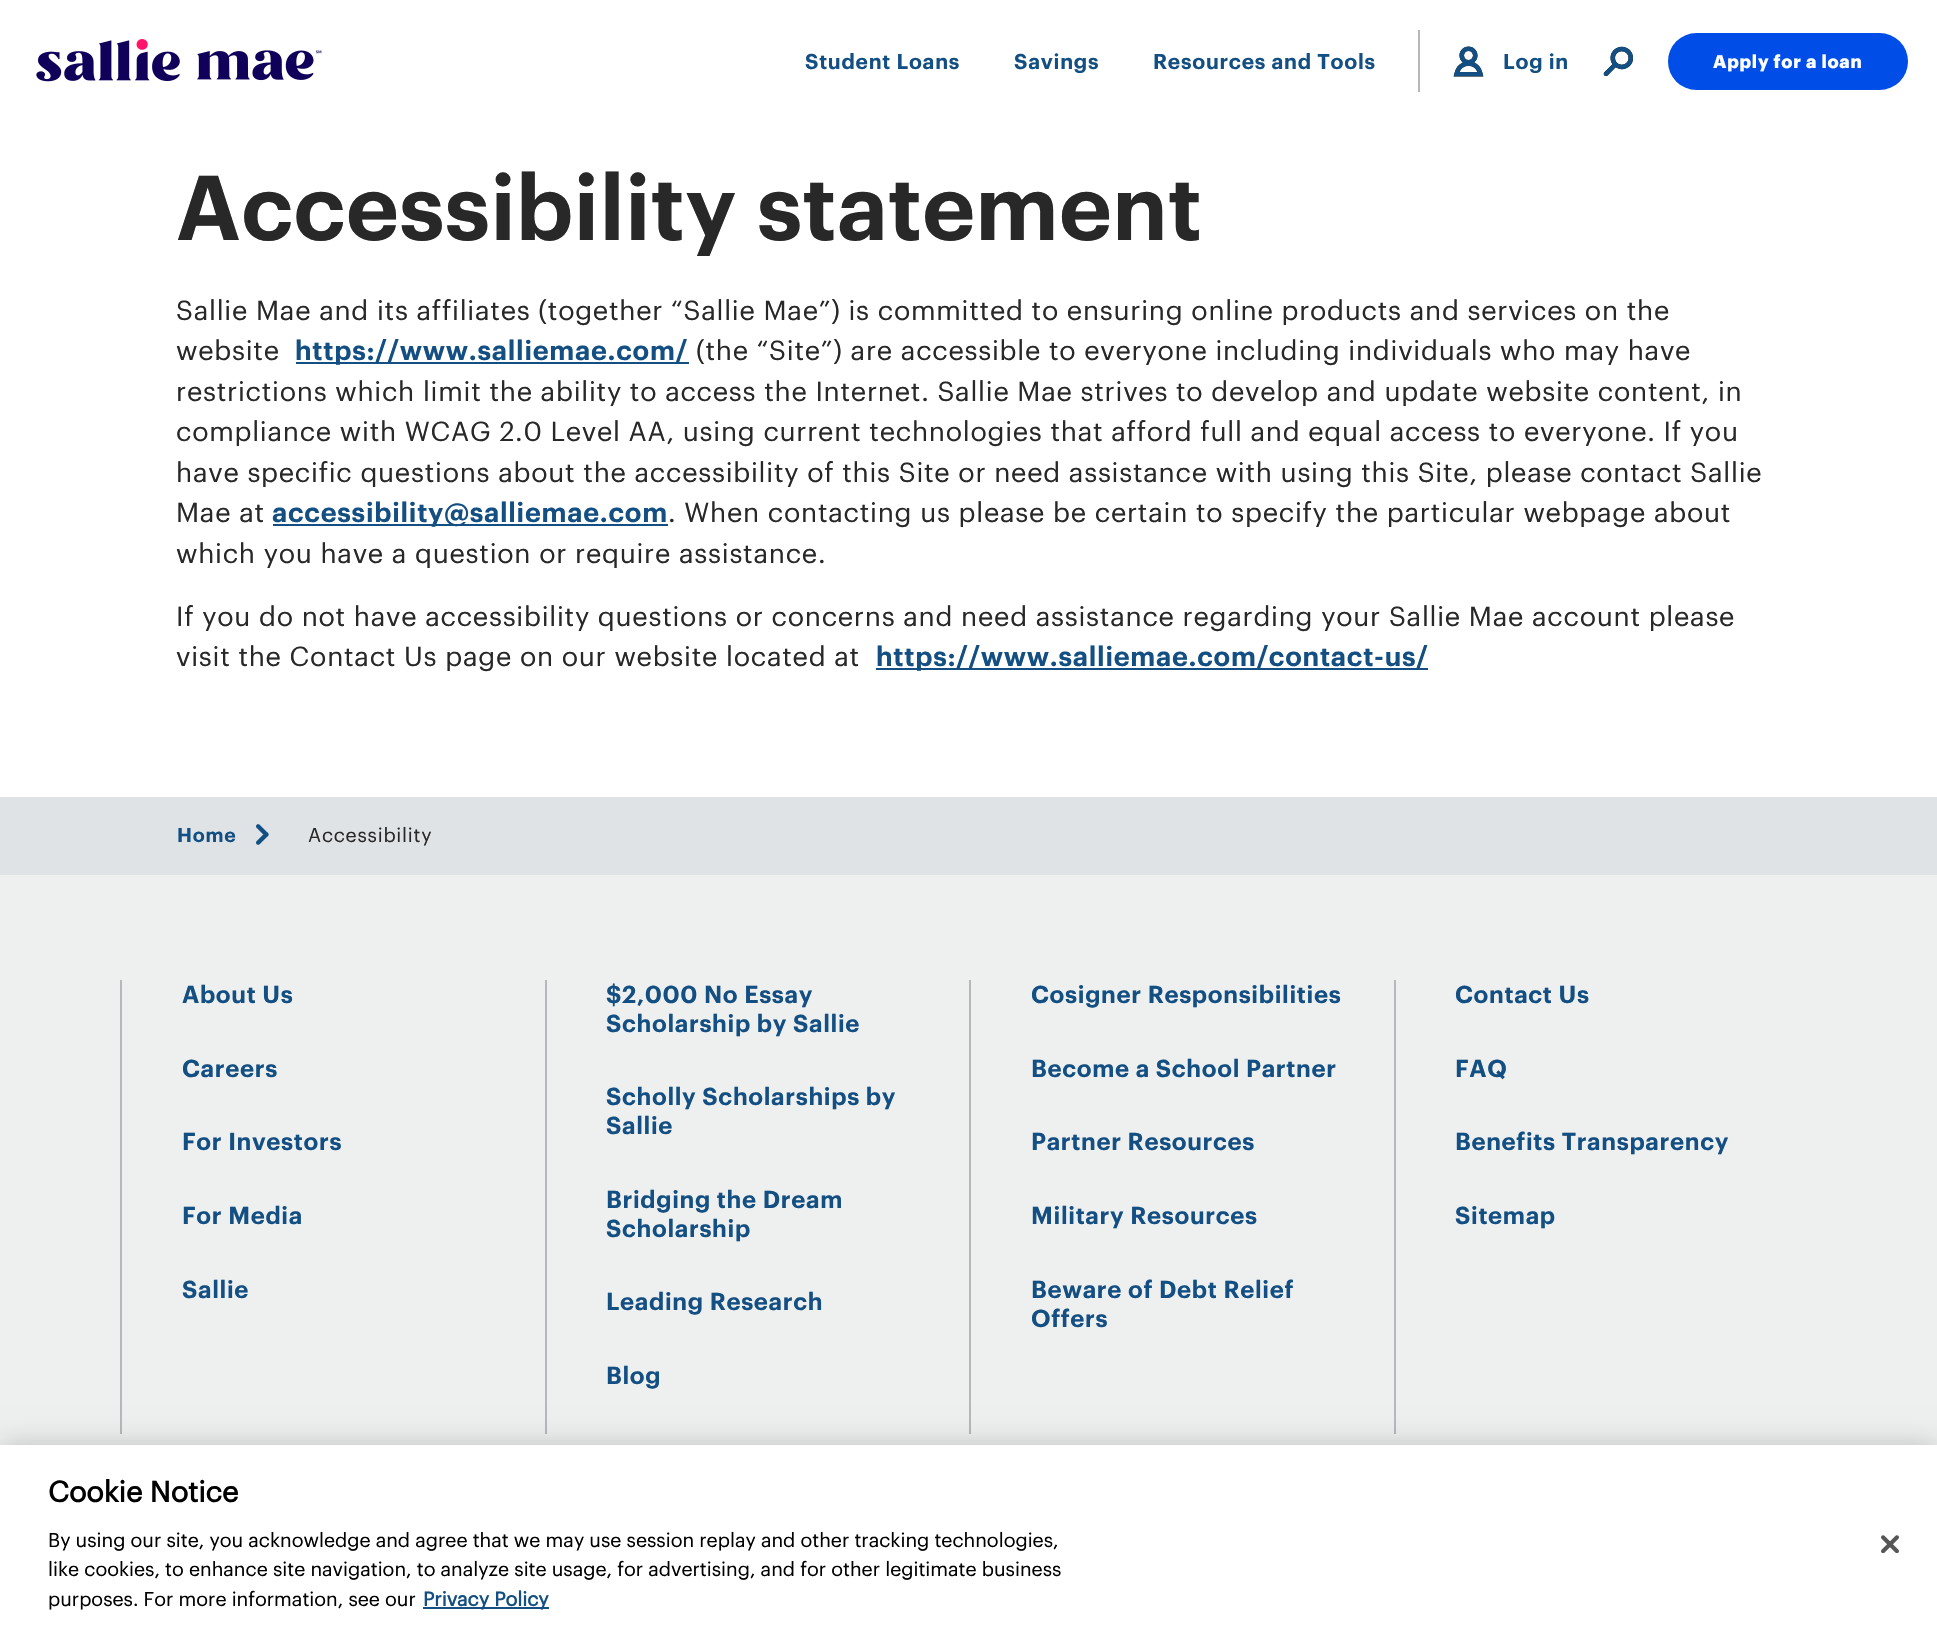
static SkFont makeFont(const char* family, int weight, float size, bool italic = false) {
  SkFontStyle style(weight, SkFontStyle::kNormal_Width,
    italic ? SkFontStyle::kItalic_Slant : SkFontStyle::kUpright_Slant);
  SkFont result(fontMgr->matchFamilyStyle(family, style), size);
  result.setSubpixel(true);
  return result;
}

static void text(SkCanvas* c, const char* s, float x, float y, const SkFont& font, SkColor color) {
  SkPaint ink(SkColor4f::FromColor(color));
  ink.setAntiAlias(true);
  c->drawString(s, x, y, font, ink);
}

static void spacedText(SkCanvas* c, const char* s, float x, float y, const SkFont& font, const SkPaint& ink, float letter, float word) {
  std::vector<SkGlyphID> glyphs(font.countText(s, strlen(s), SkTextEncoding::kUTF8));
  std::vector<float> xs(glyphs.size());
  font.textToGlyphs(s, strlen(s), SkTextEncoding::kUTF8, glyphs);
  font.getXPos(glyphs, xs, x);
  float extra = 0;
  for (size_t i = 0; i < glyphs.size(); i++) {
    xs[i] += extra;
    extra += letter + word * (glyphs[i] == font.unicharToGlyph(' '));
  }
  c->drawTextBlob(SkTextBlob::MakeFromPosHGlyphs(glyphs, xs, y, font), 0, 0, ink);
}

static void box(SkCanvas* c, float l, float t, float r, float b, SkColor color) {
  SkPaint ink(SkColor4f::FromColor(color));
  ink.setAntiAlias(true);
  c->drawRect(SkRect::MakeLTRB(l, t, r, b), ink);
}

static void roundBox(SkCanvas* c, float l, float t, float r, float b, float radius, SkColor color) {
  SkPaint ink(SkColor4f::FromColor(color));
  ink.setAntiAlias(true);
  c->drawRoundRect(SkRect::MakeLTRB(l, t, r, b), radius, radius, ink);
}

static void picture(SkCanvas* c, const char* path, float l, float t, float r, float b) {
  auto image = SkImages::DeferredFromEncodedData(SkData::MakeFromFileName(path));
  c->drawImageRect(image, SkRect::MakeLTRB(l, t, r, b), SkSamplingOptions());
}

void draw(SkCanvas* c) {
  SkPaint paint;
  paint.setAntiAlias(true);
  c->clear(0xffffffff);
  picture(c, "img_01.png", 36, 39, 322, 82);
  SkFont face1 = makeFont("Graphik", 600, 21);
  paint.setColor(0xff134f82);
  spacedText(c, "Student Loans", 805, 69, face1, paint, 0.75f, 0);
  spacedText(c, "Savings", 1014, 69, face1, paint, 0.75f, 0);
  spacedText(c, "Resources and Tools", 1153, 69, face1, paint, 0.75f, 0);
  box(c, 1418, 30, 1420, 92, 0xffb6b7ba);
  picture(c, "img_02.png", 1453, 46, 1484, 77);
  spacedText(c, "Log in", 1503, 69, face1, paint, 0.75f, 0);
  picture(c, "img_03.png", 1603, 46, 1633, 76);
  roundBox(c, 1668, 33, 1908, 90, 28.5f, 0xff004de8);
  SkFont face2 = makeFont("Graphik", 700, 18);
  paint.setColor(0xffffffff);
  spacedText(c, "Apply for a loan", 1713, 68, face2, paint, 0.75f, 0);
  SkFont face3 = makeFont("Graphik", 600, 90);
  paint.setColor(0xff282828);
  spacedText(c, "Accessibility statement", 176, 240, face3, paint, 0.4f, 0);
  SkFont face4 = makeFont("Graphik", 400, 27);
  spacedText(c, "Sallie Mae and its affiliates (together “Sallie Mae”) is committed to ensuring online products and services on the", 176, 320, face4, paint, 0.75f, 0);
  spacedText(c, "website", 176, 360, face4, paint, 0.75f, 0);
  box(c, 296, 362, 689, 364, 0xff134f82);
  SkFont face5 = makeFont("Graphik", 600, 27);
  paint.setColor(0xff134f82);
  spacedText(c, "https://www.salliemae.com/", 295, 360, face5, paint, 0.75f, 0);
  paint.setColor(0xff282828);
  spacedText(c, "(the “Site”) are accessible to everyone including individuals who may have", 696, 360, face4, paint, 0.75f, 0);
  spacedText(c, "restrictions which limit the ability to access the Internet. Sallie Mae strives to develop and update website content, in", 176, 401, face4, paint, 0.75f, 0);
  spacedText(c, "compliance with WCAG 2.0 Level AA, using current technologies that afford full and equal access to everyone. If you", 176, 441, face4, paint, 0.75f, 0);
  spacedText(c, "have specific questions about the accessibility of this Site or need assistance with using this Site, please contact Sallie", 176, 482, face4, paint, 0.75f, 0);
  spacedText(c, "Mae at", 176, 522, face4, paint, 0.75f, 0);
  box(c, 273, 524, 668, 526, 0xff134f82);
  paint.setColor(0xff134f82);
  spacedText(c, "accessibility@salliemae.com", 272, 522, face5, paint, 0.75f, 0);
  paint.setColor(0xff282828);
  spacedText(c, ". When contacting us please be certain to specify the particular webpage about", 668, 522, face4, paint, 0.75f, 0);
  spacedText(c, "which you have a question or require assistance.", 176, 563, face4, paint, 0.75f, 0);
  spacedText(c, "If you do not have accessibility questions or concerns and need assistance regarding your Sallie Mae account please", 176, 626, face4, paint, 0.75f, 0);
  spacedText(c, "visit the Contact Us page on our website located at", 176, 666, face4, paint, 0.75f, 0);
  box(c, 876, 668, 1428, 670, 0xff134f82);
  paint.setColor(0xff134f82);
  spacedText(c, "https://www.salliemae.com/contact-us/", 876, 666, face5, paint, 0.75f, 0);
  box(c, 0, 797, 1937, 875, 0xffe0e3e6);
  SkFont face6 = makeFont("Graphik", 600, 19.5f);
  spacedText(c, "Home", 177, 842, face6, paint, 0.75f, 0);
  picture(c, "img_04.png", 256, 824, 269, 845);
  SkFont face7 = makeFont("Graphik", 400, 19.5f);
  paint.setColor(0xff282828);
  spacedText(c, "Accessibility", 308, 842, face7, paint, 0.75f, 0);
  box(c, 0, 875, 1937, 1445, 0xffeeefef);
  box(c, 120, 980, 122, 1434, 0xffb7b8bb);
  SkFont face8 = makeFont("Graphik", 600, 24);
  paint.setColor(0xff134f82);
  spacedText(c, "About Us", 182, 1003, face8, paint, 0.65f, 0);
  spacedText(c, "Careers", 182, 1077, face8, paint, 0.65f, 0);
  spacedText(c, "For Investors", 182, 1150, face8, paint, 0.65f, 0);
  spacedText(c, "For Media", 182, 1224, face8, paint, 0.65f, 0);
  spacedText(c, "Sallie", 182, 1298, face8, paint, 0.65f, 0);
  box(c, 545, 980, 547, 1434, 0xffb7b8bb);
  spacedText(c, "$2,000 No Essay", 606, 1003, face8, paint, 0.65f, 0);
  spacedText(c, "Scholarship by Sallie", 606, 1032, face8, paint, 0.65f, 0);
  spacedText(c, "Scholly Scholarships by", 606, 1105, face8, paint, 0.65f, 0);
  spacedText(c, "Sallie", 606, 1134, face8, paint, 0.65f, 0);
  spacedText(c, "Bridging the Dream", 606, 1208, face8, paint, 0.65f, 0);
  spacedText(c, "Scholarship", 606, 1237, face8, paint, 0.65f, 0);
  spacedText(c, "Leading Research", 606, 1310, face8, paint, 0.65f, 0);
  spacedText(c, "Blog", 606, 1384, face8, paint, 0.65f, 0);
  box(c, 969, 980, 971, 1434, 0xffb7b8bb);
  spacedText(c, "Cosigner Responsibilities", 1031, 1003, face8, paint, 0.65f, 0);
  spacedText(c, "Become a School Partner", 1031, 1077, face8, paint, 0.65f, 0);
  spacedText(c, "Partner Resources", 1031, 1150, face8, paint, 0.65f, 0);
  spacedText(c, "Military Resources", 1031, 1224, face8, paint, 0.65f, 0);
  spacedText(c, "Beware of Debt Relief", 1031, 1298, face8, paint, 0.65f, 0);
  spacedText(c, "Offers", 1031, 1327, face8, paint, 0.65f, 0);
  box(c, 1394, 980, 1396, 1434, 0xffb7b8bb);
  spacedText(c, "Contact Us", 1455, 1003, face8, paint, 0.65f, 0);
  spacedText(c, "FAQ", 1455, 1077, face8, paint, 0.65f, 0);
  spacedText(c, "Benefits Transparency", 1455, 1150, face8, paint, 0.65f, 0);
  spacedText(c, "Sitemap", 1455, 1224, face8, paint, 0.65f, 0);
  paint.setColor(0x33000000);
  paint.setMaskFilter(SkMaskFilter::MakeBlur(kNormal_SkBlurStyle, 13.5f));
  c->drawRect(SkRect::MakeLTRB(0, 1445, 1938, 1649), paint);
  paint.setMaskFilter(nullptr);
  box(c, 0, 1445, 1937, 1648, 0xffffffff);
  SkFont face9 = makeFont("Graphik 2", 700, 28.75f);
  text(c, "Cookie Notice", 48, 1502, face9, 0xff000000);
  text(c, "By using our site, you acknowledge and agree that we may use session replay and other tracking technologies,", 48, 1547, face7, 0xff000000);
  text(c, "like cookies, to enhance site navigation, to analyze site usage, for advertising, and for other legitimate business", 48, 1576, face7, 0xff000000);
  text(c, "purposes. For more information, see our", 48, 1606, face7, 0xff000000);
  box(c, 423, 1607, 549, 1609, 0xff134f82);
  SkFont face10 = makeFont("Graphik 2", 700, 19.5f);
  text(c, "Privacy Policy", 423, 1606, face10, 0xff134f82);
  picture(c, "img_05.png", 1881, 1535, 1899, 1553);
}
